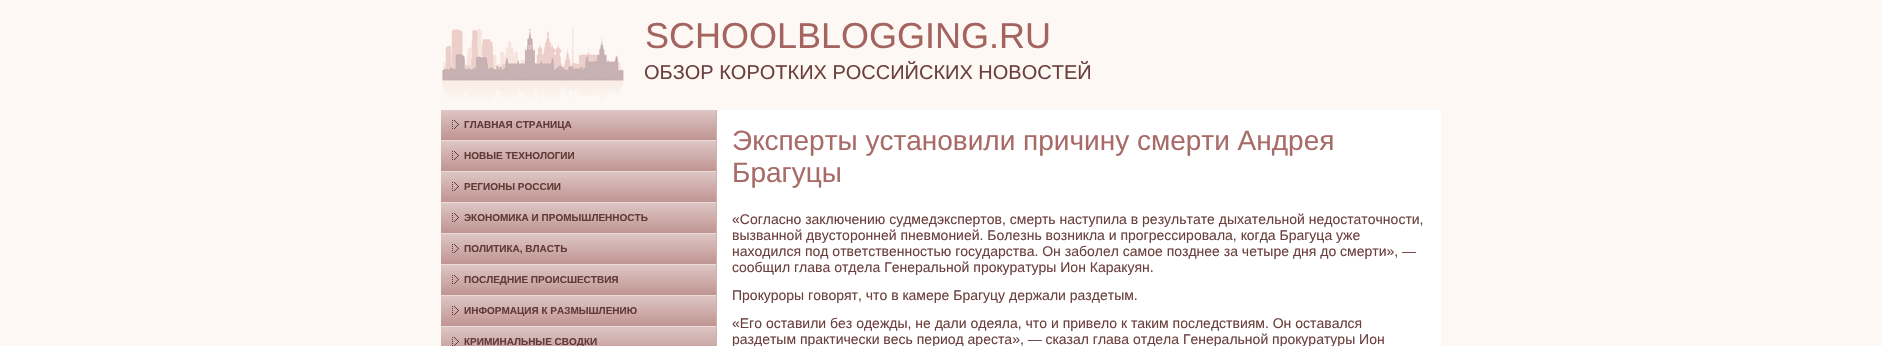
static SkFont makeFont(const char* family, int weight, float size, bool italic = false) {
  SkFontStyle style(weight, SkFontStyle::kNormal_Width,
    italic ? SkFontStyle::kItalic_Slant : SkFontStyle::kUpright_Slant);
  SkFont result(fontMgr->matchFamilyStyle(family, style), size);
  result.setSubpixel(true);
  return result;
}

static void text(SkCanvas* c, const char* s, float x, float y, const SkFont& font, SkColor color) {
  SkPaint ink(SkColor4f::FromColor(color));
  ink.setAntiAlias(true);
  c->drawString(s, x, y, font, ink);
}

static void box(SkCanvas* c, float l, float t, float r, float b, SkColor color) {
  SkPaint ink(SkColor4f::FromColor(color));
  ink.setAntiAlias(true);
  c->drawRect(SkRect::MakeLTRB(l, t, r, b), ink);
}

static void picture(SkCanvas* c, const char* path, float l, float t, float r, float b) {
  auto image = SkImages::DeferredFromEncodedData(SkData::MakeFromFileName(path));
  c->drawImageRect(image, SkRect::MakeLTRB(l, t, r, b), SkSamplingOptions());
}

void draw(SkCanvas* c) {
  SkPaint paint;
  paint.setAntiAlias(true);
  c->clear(0xfffef8f5);
  picture(c, "img_01.png", 442, 25, 624, 101);
  SkFont face1 = makeFont("Liberation Sans", 400, 36);
  text(c, "SCHOOLBLOGGING.RU", 645, 48, face1, 0xffa46560);
  SkFont face2 = makeFont("Liberation Sans", 400, 20);
  text(c, "ОБЗОР КОРОТКИХ РОССИЙСКИХ НОВОСТЕЙ", 644, 79, face2, 0xff6b403d);
  box(c, 717, 110, 1441, 346, 0xffffffff);
  box(c, 716, 110, 717, 346, 0xffcfadab);
  {
    const SkColor colors[] = {0xffddc6c5, 0xffc09491};
    const float stops[] = {0, 1};
    const SkPoint ends[] = {{579, 110}, {579, 140}};
    paint.setShader(SkGradientShader::MakeLinear(ends, colors, stops, 2, SkTileMode::kClamp));
    paint.setAlpha(255);
  }
  c->drawRect(SkRect::MakeLTRB(441, 110, 716, 140), paint);
  picture(c, "img_02.png", 452, 120, 459, 129);
  SkFont face3 = makeFont("Liberation Sans", 700, 10);
  text(c, "ГЛАВНАЯ СТРАНИЦА", 464, 128, face3, 0xff613b38);
  box(c, 441, 140, 716, 141, 0xffebdcdb);
  {
    const SkColor colors[] = {0xffddc6c5, 0xffc09491};
    const float stops[] = {0, 1};
    const SkPoint ends[] = {{579, 141}, {579, 171}};
    paint.setShader(SkGradientShader::MakeLinear(ends, colors, stops, 2, SkTileMode::kClamp));
    paint.setAlpha(255);
  }
  c->drawRect(SkRect::MakeLTRB(441, 141, 716, 171), paint);
  picture(c, "img_02.png", 452, 151, 459, 160);
  text(c, "НОВЫЕ ТЕХНОЛОГИИ", 464, 159, face3, 0xff613b38);
  box(c, 441, 171, 716, 172, 0xffebdcdb);
  {
    const SkColor colors[] = {0xffddc6c5, 0xffc09491};
    const float stops[] = {0, 1};
    const SkPoint ends[] = {{579, 172}, {579, 202}};
    paint.setShader(SkGradientShader::MakeLinear(ends, colors, stops, 2, SkTileMode::kClamp));
    paint.setAlpha(255);
  }
  c->drawRect(SkRect::MakeLTRB(441, 172, 716, 202), paint);
  picture(c, "img_02.png", 452, 182, 459, 191);
  text(c, "РЕГИОНЫ РОССИИ", 464, 190, face3, 0xff613b38);
  box(c, 441, 202, 716, 203, 0xffebdcdb);
  {
    const SkColor colors[] = {0xffddc6c5, 0xffc09491};
    const float stops[] = {0, 1};
    const SkPoint ends[] = {{579, 203}, {579, 233}};
    paint.setShader(SkGradientShader::MakeLinear(ends, colors, stops, 2, SkTileMode::kClamp));
    paint.setAlpha(255);
  }
  c->drawRect(SkRect::MakeLTRB(441, 203, 716, 233), paint);
  picture(c, "img_02.png", 452, 213, 459, 222);
  text(c, "ЭКОНОМИКА И ПРОМЫШЛЕННОСТЬ", 464, 221, face3, 0xff613b38);
  box(c, 441, 233, 716, 234, 0xffebdcdb);
  {
    const SkColor colors[] = {0xffddc6c5, 0xffc09491};
    const float stops[] = {0, 1};
    const SkPoint ends[] = {{579, 234}, {579, 264}};
    paint.setShader(SkGradientShader::MakeLinear(ends, colors, stops, 2, SkTileMode::kClamp));
    paint.setAlpha(255);
  }
  c->drawRect(SkRect::MakeLTRB(441, 234, 716, 264), paint);
  picture(c, "img_02.png", 452, 244, 459, 253);
  text(c, "ПОЛИТИКА, ВЛАСТЬ", 464, 252, face3, 0xff613b38);
  box(c, 441, 264, 716, 265, 0xffebdcdb);
  {
    const SkColor colors[] = {0xffddc6c5, 0xffc09491};
    const float stops[] = {0, 1};
    const SkPoint ends[] = {{579, 265}, {579, 295}};
    paint.setShader(SkGradientShader::MakeLinear(ends, colors, stops, 2, SkTileMode::kClamp));
    paint.setAlpha(255);
  }
  c->drawRect(SkRect::MakeLTRB(441, 265, 716, 295), paint);
  picture(c, "img_02.png", 452, 275, 459, 284);
  text(c, "ПОСЛЕДНИЕ ПРОИСШЕСТВИЯ", 464, 283, face3, 0xff613b38);
  box(c, 441, 295, 716, 296, 0xffebdcdb);
  {
    const SkColor colors[] = {0xffddc6c5, 0xffc09491};
    const float stops[] = {0, 1};
    const SkPoint ends[] = {{579, 296}, {579, 326}};
    paint.setShader(SkGradientShader::MakeLinear(ends, colors, stops, 2, SkTileMode::kClamp));
    paint.setAlpha(255);
  }
  c->drawRect(SkRect::MakeLTRB(441, 296, 716, 326), paint);
  picture(c, "img_02.png", 452, 306, 459, 315);
  text(c, "ИНФОРМАЦИЯ К РАЗМЫШЛЕНИЮ", 464, 314, face3, 0xff613b38);
  box(c, 441, 326, 716, 327, 0xffebdcdb);
  {
    const SkColor colors[] = {0xffddc6c5, 0xffc09491};
    const float stops[] = {0, 1};
    const SkPoint ends[] = {{579, 327}, {579, 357}};
    paint.setShader(SkGradientShader::MakeLinear(ends, colors, stops, 2, SkTileMode::kClamp));
    paint.setAlpha(255);
  }
  c->drawRect(SkRect::MakeLTRB(441, 327, 716, 346), paint);
  picture(c, "img_02.png", 452, 337, 459, 346);
  text(c, "КРИМИНАЛЬНЫЕ СВОДКИ", 464, 345, face3, 0xff613b38);
  SkFont face4 = makeFont("Liberation Sans", 400, 28);
  text(c, "Эксперты установили причину смерти Андрея", 732, 150, face4, 0xffa86b67);
  text(c, "Брагуцы", 732, 182, face4, 0xffa86b67);
  SkFont face5 = makeFont("Liberation Sans", 400, 14);
  text(c, "«Согласно заключению судмедэкспертов, смерть наступила в результате дыхательной недостаточности,", 732, 224, face5, 0xff6b403d);
  text(c, "вызванной двусторонней пневмонией. Болезнь возникла и прогрессировала, когда Брагуца уже", 732, 240, face5, 0xff6b403d);
  text(c, "находился под ответственностью государства. Он заболел самое позднее за четыре дня до смерти», —", 732, 256, face5, 0xff6b403d);
  text(c, "сообщил глава отдела Генеральной прокуратуры Ион Каракуян.", 732, 272, face5, 0xff6b403d);
  text(c, "Прокуроры говорят, что в камере Брагуцу держали раздетым.", 732, 300, face5, 0xff6b403d);
  text(c, "«Его оставили без одежды, не дали одеяла, что и привело к таким последствиям. Он оставался", 732, 328, face5, 0xff6b403d);
  text(c, "раздетым практически весь период ареста», — сказал глава отдела Генеральной прокуратуры Ион", 732, 344, face5, 0xff6b403d);
}
